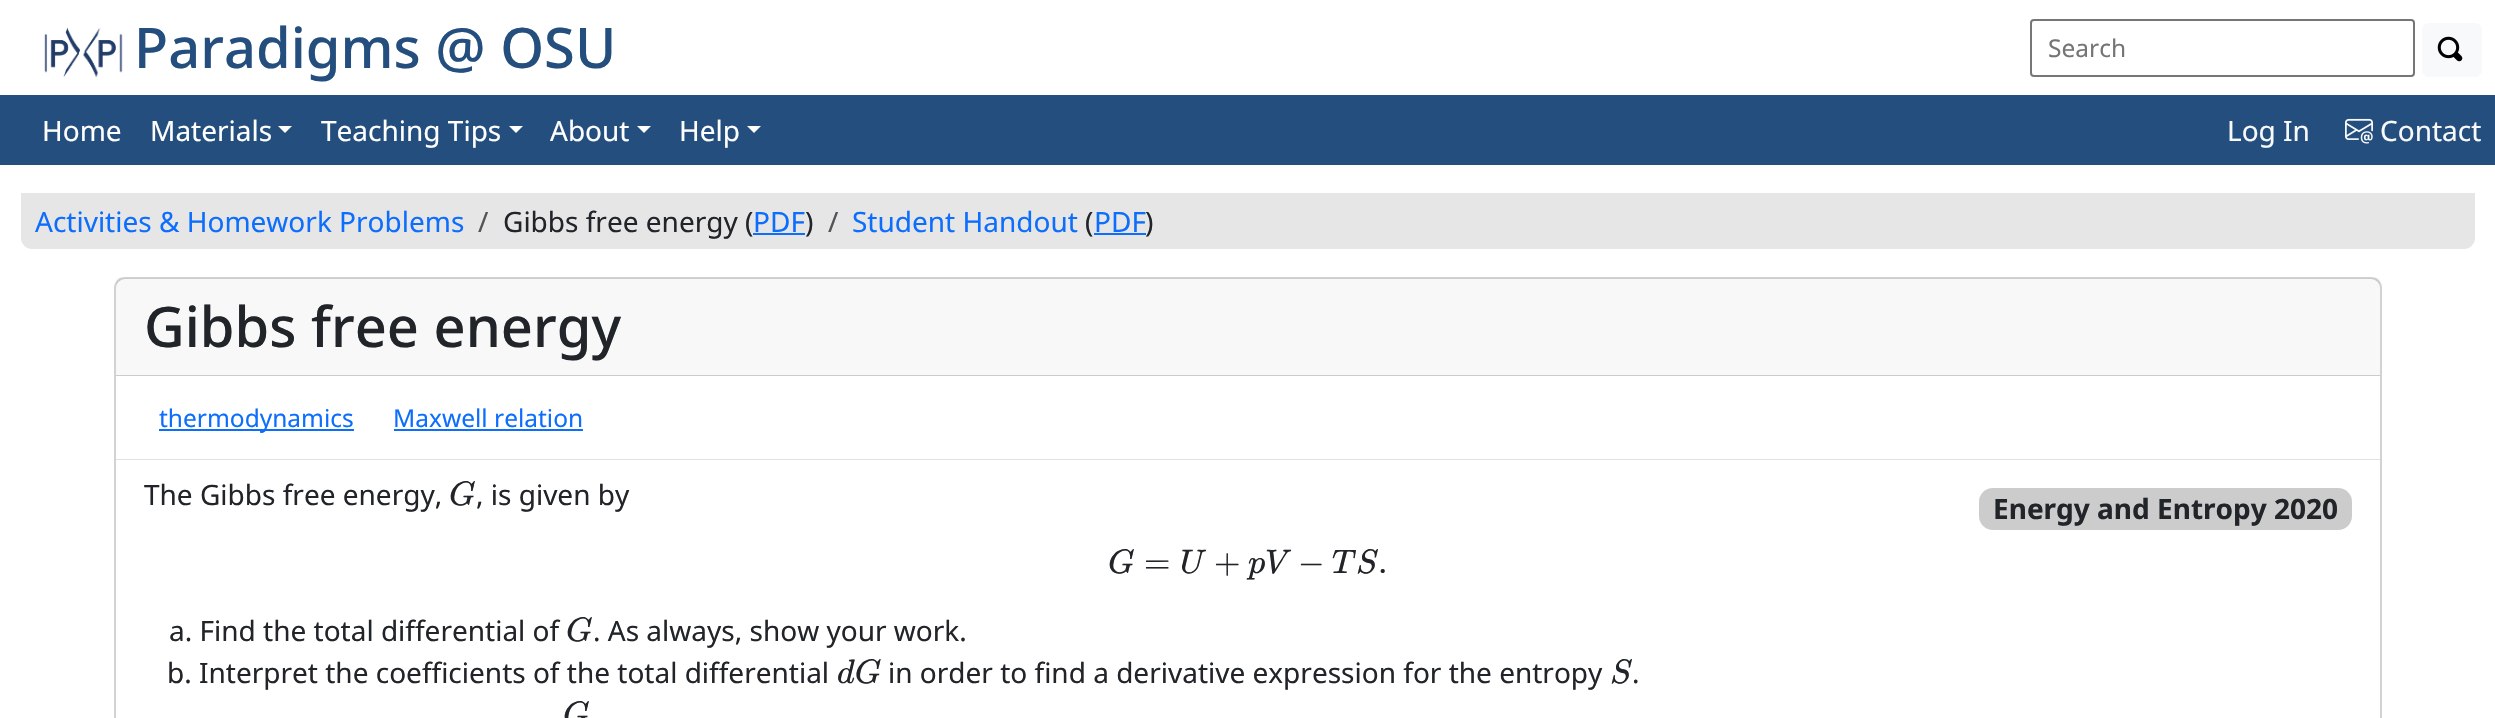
static SkFont makeFont(const char* family, int weight, float size, bool italic = false) {
  SkFontStyle style(weight, SkFontStyle::kNormal_Width,
    italic ? SkFontStyle::kItalic_Slant : SkFontStyle::kUpright_Slant);
  SkFont result(fontMgr->matchFamilyStyle(family, style), size);
  result.setSubpixel(true);
  return result;
}

static void text(SkCanvas* c, const char* s, float x, float y, const SkFont& font, SkColor color) {
  SkPaint ink(SkColor4f::FromColor(color));
  ink.setAntiAlias(true);
  c->drawString(s, x, y, font, ink);
}

static void box(SkCanvas* c, float l, float t, float r, float b, SkColor color) {
  SkPaint ink(SkColor4f::FromColor(color));
  ink.setAntiAlias(true);
  c->drawRect(SkRect::MakeLTRB(l, t, r, b), ink);
}

static void roundBox(SkCanvas* c, float l, float t, float r, float b, float radius, SkColor color) {
  SkPaint ink(SkColor4f::FromColor(color));
  ink.setAntiAlias(true);
  c->drawRoundRect(SkRect::MakeLTRB(l, t, r, b), radius, radius, ink);
}

static void picture(SkCanvas* c, const char* path, float l, float t, float r, float b) {
  auto image = SkImages::DeferredFromEncodedData(SkData::MakeFromFileName(path));
  c->drawImageRect(image, SkRect::MakeLTRB(l, t, r, b), SkSamplingOptions());
}

void draw(SkCanvas* c) {
  SkPaint paint;
  paint.setAntiAlias(true);
  c->clear(0xffffffff);
  picture(c, "img_01.png", 44, 28, 123, 77);
  SkFont face1 = makeFont("Noto Sans", 500, 56);
  text(c, "Paradigms @ OSU", 134, 68, face1, 0xff244e7d);
  paint.setStyle(SkPaint::kStroke_Style);
  paint.setStrokeWidth(2);
  paint.setColor(0xff767676);
  c->drawRoundRect(SkRect::MakeLTRB(2031, 20, 2414, 76), 3, 3, paint);
  SkFont face2 = makeFont("Noto Sans", 400, 24.5f);
  text(c, "Search", 2048, 57, face2, 0xff757575);
  roundBox(c, 2422, 23, 2482, 77, 7, 0xfff8f9fa);
  picture(c, "img_02.png", 2437, 36, 2463, 62);
  box(c, 0, 95, 2495, 165, 0xff244e7d);
  SkFont face3 = makeFont("Noto Sans", 400, 28);
  text(c, "Home", 42, 141, face3, 0xffffffff);
  text(c, "Materials", 150, 141, face3, 0xffffffff);
  paint.setStyle(SkPaint::kFill_Style);
  paint.setColor(0xffffffff);
  c->drawPath(SkPathBuilder().moveTo(278, 126).lineTo(292, 126).lineTo(285, 133).close().detach(), paint);
  text(c, "Teaching Tips", 321, 141, face3, 0xffffffff);
  c->drawPath(SkPathBuilder().moveTo(509, 126).lineTo(523, 126).lineTo(516, 133).close().detach(), paint);
  text(c, "About", 550, 141, face3, 0xffffffff);
  c->drawPath(SkPathBuilder().moveTo(637, 126).lineTo(651, 126).lineTo(644, 133).close().detach(), paint);
  text(c, "Help", 679, 141, face3, 0xffffffff);
  c->drawPath(SkPathBuilder().moveTo(747, 126).lineTo(761, 126).lineTo(754, 133).close().detach(), paint);
  text(c, "Log In", 2227, 141, face3, 0xfff8f9fa);
  picture(c, "img_03.png", 2345, 118, 2373, 144);
  text(c, "Contact", 2380, 141, face3, 0xfff8f9fa);
  paint.setColor(0xffe6e6e6);
  c->drawPath(SkPathBuilder().moveTo(21, 193).lineTo(2475, 193).lineTo(2475, 238).cubicTo(2475, 244, 2470, 249, 2464, 249).lineTo(32, 249).cubicTo(26, 249, 21, 244, 21, 238).close().detach(), paint);
  text(c, "Activities & Homework Problems", 35, 232, face3, 0xff0d6efd);
  text(c, "/", 478, 232, face3, 0xff525558);
  text(c, "Gibbs free energy (", 503, 232, face3, 0xff212529);
  text(c, "PDF", 753, 232, face3, 0xff0d6efd);
  box(c, 753, 233, 805, 235, 0xff0d6efd);
  text(c, ")", 805, 232, face3, 0xff212529);
  text(c, "/", 828, 232, face3, 0xff525558);
  text(c, "Student Handout", 852, 232, face3, 0xff0d6efd);
  text(c, "(", 1085, 232, face3, 0xff212529);
  text(c, "PDF", 1094, 232, face3, 0xff0d6efd);
  box(c, 1094, 233, 1146, 235, 0xff0d6efd);
  text(c, ")", 1145, 232, face3, 0xff212529);
  paint.setStyle(SkPaint::kStroke_Style);
  paint.setColor(0xffd2d2d2);
  c->drawRoundRect(SkRect::MakeLTRB(115, 278, 2381, 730), 10, 10, paint);
  box(c, 116, 278, 2380, 376, 0x08212529);
  box(c, 116, 375, 2380, 376, 0x2e000000);
  text(c, "Gibbs free energy", 144, 347, face1, 0xff212529);
  box(c, 116, 459, 2380, 460, 0xffdee2e6);
  box(c, 159, 429, 354, 431, 0xff0d6efd);
  text(c, "thermodynamics", 159, 427, face2, 0xff0d6efd);
  text(c, "Maxwell relation", 393, 427, face2, 0xff0d6efd);
  box(c, 394, 429, 583, 431, 0xff0d6efd);
  text(c, "The Gibbs free energy,", 144, 505, face3, 0xff212529);
  SkFont face4 = makeFont("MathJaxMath", 400, 34, true);
  text(c, "G", 449, 505, face4, 0xff212529);
  text(c, ", is given by", 476, 505, face3, 0xff212529);
  roundBox(c, 1979, 488, 2352, 530, 14, 0xffcccccc);
  SkFont face5 = makeFont("Noto Sans", 700, 28);
  text(c, "Energy and Entropy 2020", 1993, 519, face5, 0xff212529);
  text(c, "G", 1108, 573, face4, 0xff212529);
  SkFont face6 = makeFont("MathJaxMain", 400, 34);
  text(c, "=", 1144, 573, face6, 0xff212529);
  text(c, "U", 1180, 573, face4, 0xff212529);
  text(c, "+", 1214, 573, face6, 0xff212529);
  text(c, "pV", 1248, 573, face4, 0xff212529);
  text(c, "−", 1298, 573, face6, 0xff212529);
  text(c, "T", 1332, 573, face4, 0xff212529);
  text(c, "S", 1356, 573, face4, 0xff212529);
  text(c, ".", 1378, 573, face6, 0xff212529);
  text(c, "a. Find the total differential of", 169, 641, face3, 0xff212529);
  text(c, "G", 566, 641, face4, 0xff212529);
  text(c, ". As always, show your work.", 593, 641, face3, 0xff212529);
  text(c, "b. Interpret the coefficients of the total differential", 167, 683, face3, 0xff212529);
  text(c, "dG", 837, 683, face4, 0xff212529);
  text(c, "in order to find a derivative expression for the entropy", 888, 683, face3, 0xff212529);
  text(c, "S", 1610, 683, face4, 0xff212529);
  text(c, ".", 1632, 683, face3, 0xff212529);
  text(c, "G", 563, 725, face4, 0xff212529);
}
